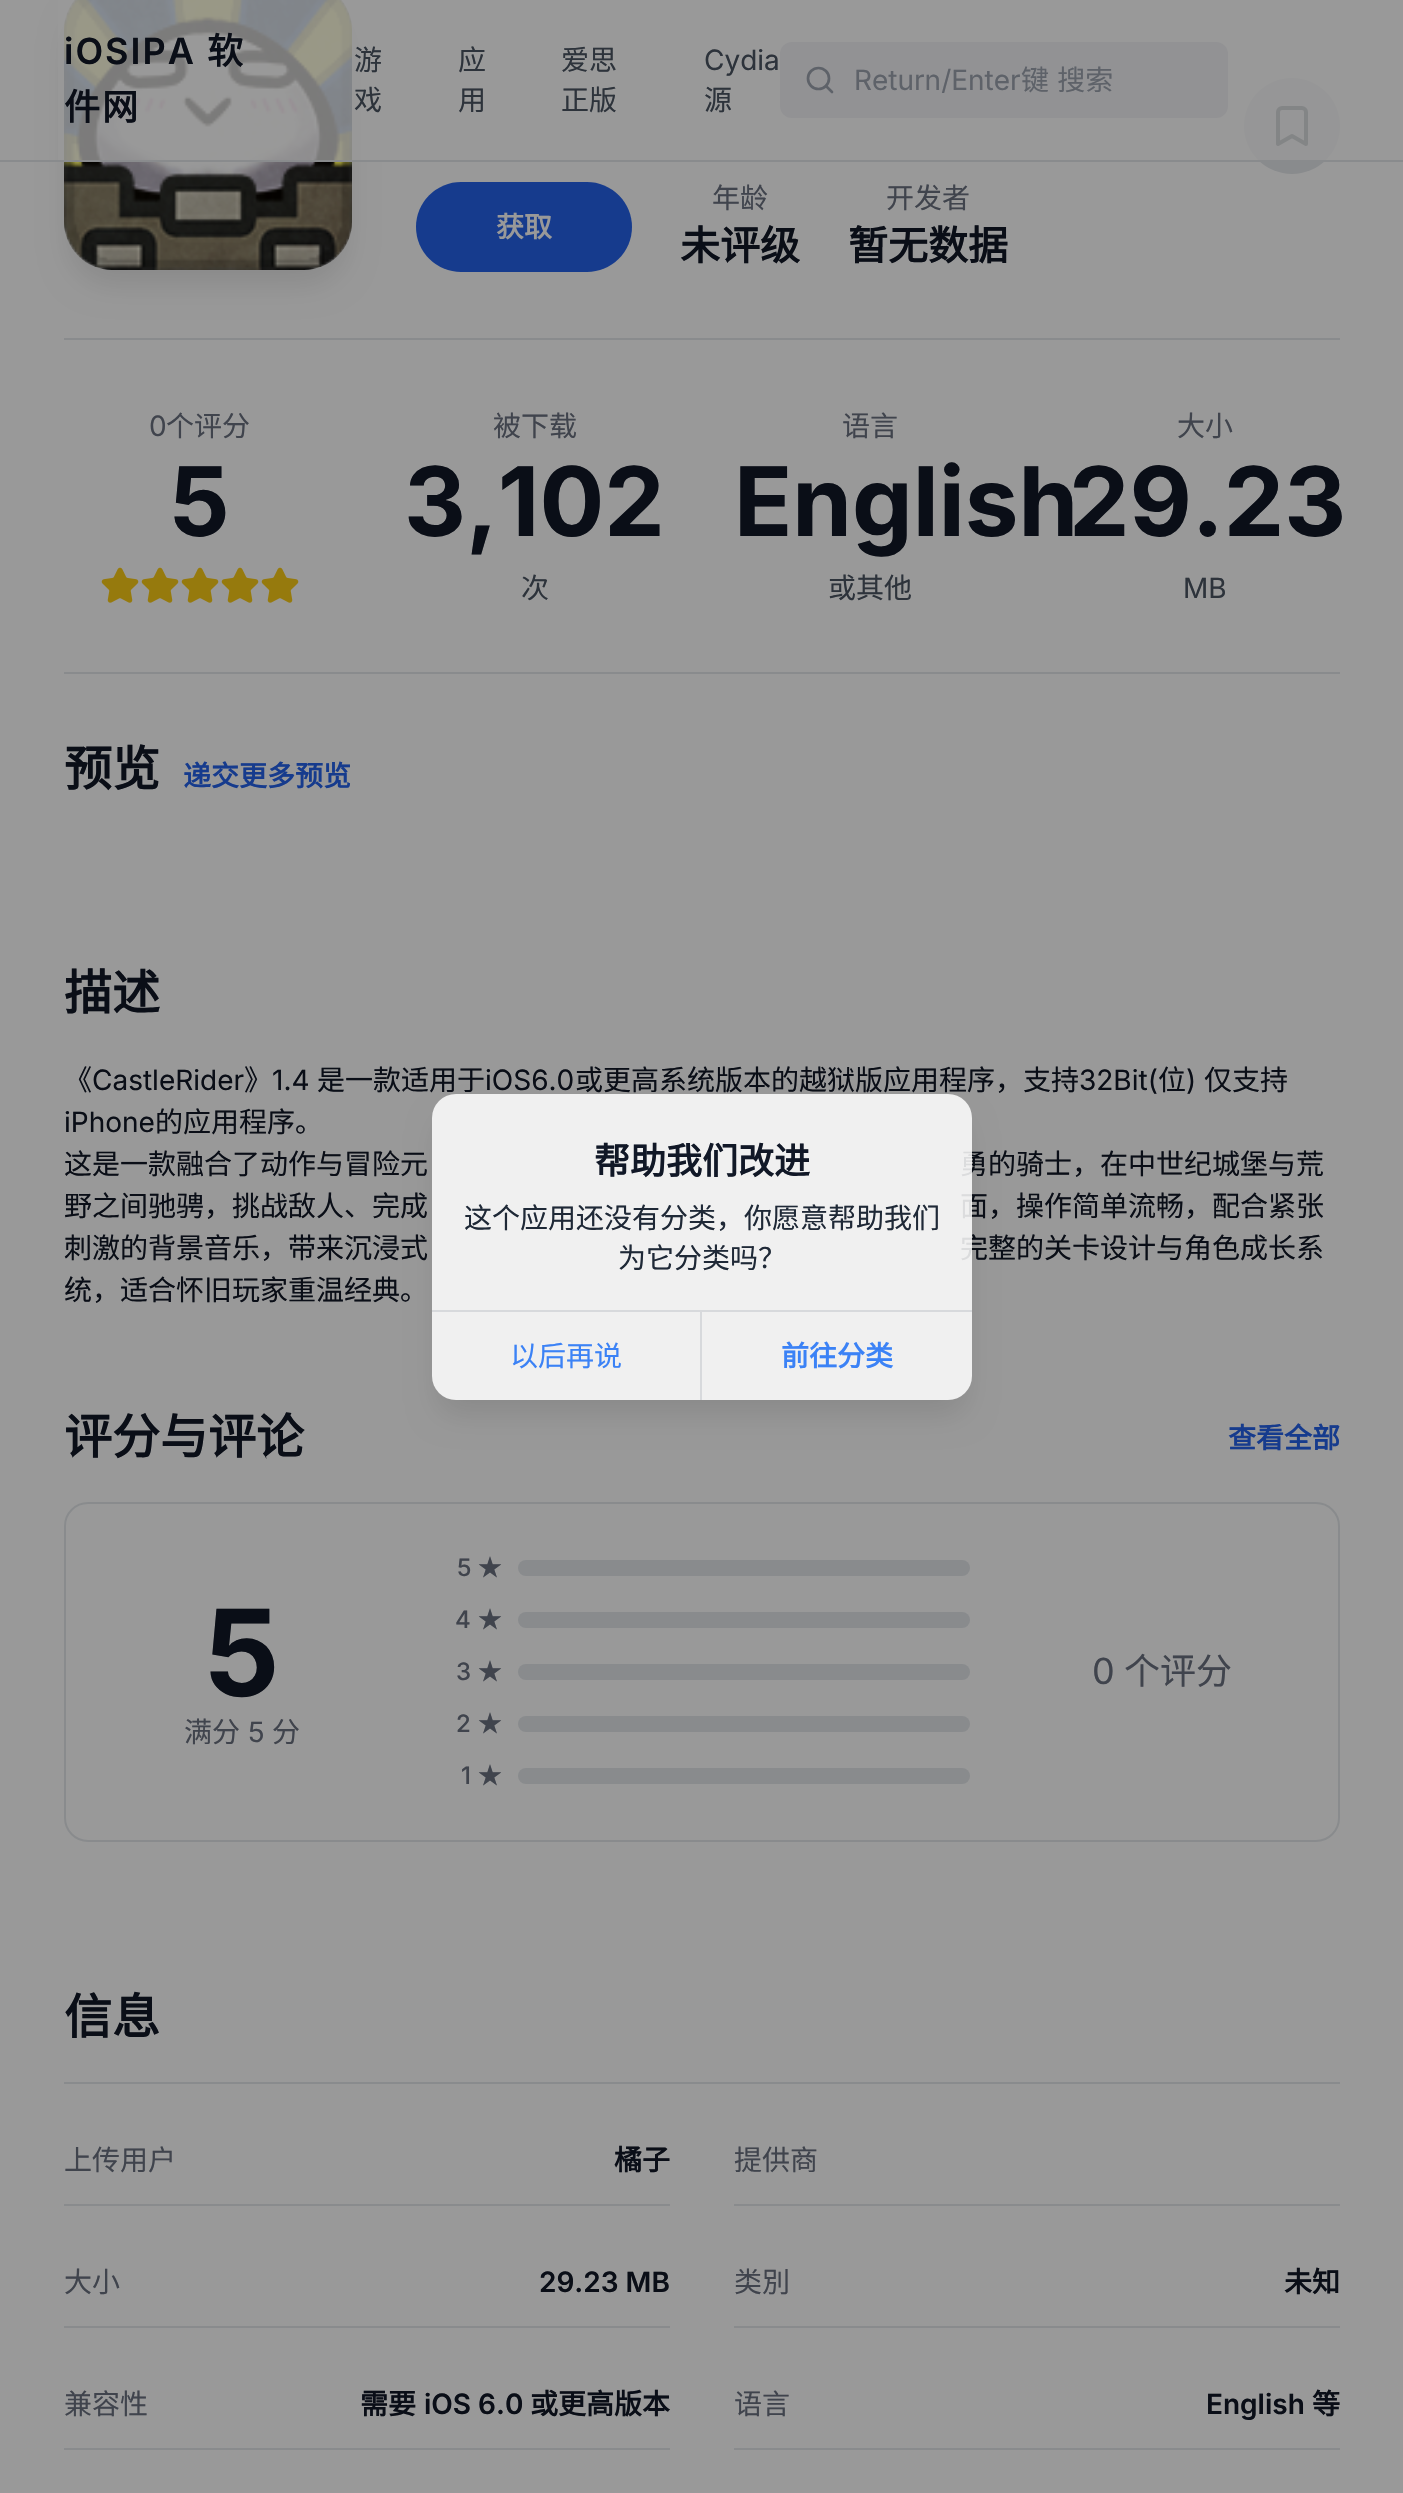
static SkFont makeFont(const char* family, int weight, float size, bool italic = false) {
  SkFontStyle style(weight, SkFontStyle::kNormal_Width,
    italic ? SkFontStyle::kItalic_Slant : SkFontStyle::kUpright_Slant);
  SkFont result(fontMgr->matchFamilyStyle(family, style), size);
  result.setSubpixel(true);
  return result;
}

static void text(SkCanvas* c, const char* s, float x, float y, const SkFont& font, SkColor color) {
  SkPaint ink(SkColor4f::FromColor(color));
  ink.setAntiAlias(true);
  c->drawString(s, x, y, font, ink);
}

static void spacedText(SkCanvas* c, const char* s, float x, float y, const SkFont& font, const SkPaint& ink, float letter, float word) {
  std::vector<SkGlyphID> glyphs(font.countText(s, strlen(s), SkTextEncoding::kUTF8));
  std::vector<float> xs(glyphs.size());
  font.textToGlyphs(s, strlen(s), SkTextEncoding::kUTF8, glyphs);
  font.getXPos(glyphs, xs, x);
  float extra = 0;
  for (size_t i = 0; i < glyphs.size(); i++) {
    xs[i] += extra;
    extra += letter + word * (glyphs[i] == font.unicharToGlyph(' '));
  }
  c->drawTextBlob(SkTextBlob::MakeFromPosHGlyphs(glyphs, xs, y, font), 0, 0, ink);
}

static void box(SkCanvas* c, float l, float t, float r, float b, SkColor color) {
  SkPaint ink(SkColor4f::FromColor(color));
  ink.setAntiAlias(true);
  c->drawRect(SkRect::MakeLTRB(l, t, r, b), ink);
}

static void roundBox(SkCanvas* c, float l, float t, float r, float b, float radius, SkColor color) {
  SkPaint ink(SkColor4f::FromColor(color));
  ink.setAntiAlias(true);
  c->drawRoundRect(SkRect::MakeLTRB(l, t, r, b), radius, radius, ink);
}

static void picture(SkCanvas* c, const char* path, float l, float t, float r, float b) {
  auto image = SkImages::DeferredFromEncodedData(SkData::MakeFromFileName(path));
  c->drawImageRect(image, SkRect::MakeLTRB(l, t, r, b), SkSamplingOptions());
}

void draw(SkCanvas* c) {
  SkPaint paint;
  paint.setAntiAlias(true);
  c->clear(0xff999999);
  c->save();
  c->clipPath(SkPathBuilder(SkPathFillType::kEvenOdd).moveTo(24, 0).lineTo(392, 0).lineTo(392, 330).lineTo(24, 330).close().moveTo(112, -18).lineTo(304, -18).cubicTo(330.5f, -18, 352, 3.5f, 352, 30).lineTo(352, 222).cubicTo(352, 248.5f, 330.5f, 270, 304, 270).lineTo(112, 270).cubicTo(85.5f, 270, 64, 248.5f, 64, 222).lineTo(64, 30).cubicTo(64, 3.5f, 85.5f, -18, 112, -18).close().detach(), true);
  paint.setColor(0x1a000000);
  paint.setMaskFilter(SkMaskFilter::MakeBlur(kNormal_SkBlurStyle, 15));
  c->drawRoundRect(SkRect::MakeLTRB(70, 8, 346, 284), 42, 42, paint);
  paint.setMaskFilter(nullptr);
  c->restore();
  picture(c, "img_01.png", 64, 0, 352, 270);
  paint.setColor(0xff898b8d);
  c->drawCircle(1292, 126, 48, paint);
  paint.setStyle(SkPaint::kStroke_Style);
  paint.setStrokeWidth(4);
  paint.setStrokeCap(SkPaint::kRound_Cap);
  paint.setStrokeJoin(SkPaint::kRound_Join);
  paint.setColor(0xff2d333b);
  c->drawPath(SkPathBuilder().moveTo(1306, 144).lineTo(1292, 136).lineTo(1278, 144).lineTo(1278, 112).cubicTo(1278, 110, 1280, 108, 1282, 108).lineTo(1302, 108).cubicTo(1304, 108, 1306, 110, 1306, 112).close().detach(), paint);
  box(c, 58, 0, 1340, 160, 0xcc999999);
  box(c, 0, 160, 1403, 162, 0xff898b8d);
  SkFont face1 = makeFont("Inter", 600, 36);
  paint.setStyle(SkPaint::kFill_Style);
  paint.setColor(0xff0a0e17);
  spacedText(c, "iOSIPA", 64, 64, face1, paint, 2, 0);
  SkFont face2 = makeFont("Noto Sans CJK SC", 700, 36);
  spacedText(c, "软", 207, 64, face2, paint, 2, 0);
  spacedText(c, "件网", 64, 120, face2, paint, 2, 0);
  SkFont face3 = makeFont("Noto Sans CJK SC", 400, 28);
  text(c, "游", 354, 70, face3, 0xff2d333b);
  text(c, "戏", 354, 110, face3, 0xff2d333b);
  text(c, "应", 458, 70, face3, 0xff2d333b);
  text(c, "用", 458, 110, face3, 0xff2d333b);
  text(c, "爱思", 561, 70, face3, 0xff2d333b);
  text(c, "正版", 561, 110, face3, 0xff2d333b);
  SkFont face4 = makeFont("Inter", 400, 28);
  text(c, "Cydia", 704, 70, face4, 0xff2d333b);
  text(c, "源", 704, 110, face3, 0xff2d333b);
  roundBox(c, 780, 42, 1228, 118, 12, 0xff929294);
  paint.setStyle(SkPaint::kStroke_Style);
  paint.setStrokeWidth(2.7f);
  paint.setColor(0xff5e6269);
  c->drawPath(SkPathBuilder().moveTo(832, 92).lineTo(826, 86).detach(), paint);
  paint.setStrokeCap(SkPaint::kButt_Cap);
  paint.setStrokeJoin(SkPaint::kMiter_Join);
  c->drawCircle(818.5f, 78.5f, 10.5f, paint);
  text(c, "Return/Enter", 854, 90, face4, 0xff5e6269);
  paint.setStyle(SkPaint::kFill_Style);
  spacedText(c, "键 搜索", 1021, 90, face3, paint, 0, 2);
  box(c, 64, 338, 1340, 340, 0xff898b8d);
  roundBox(c, 416, 182, 632, 272, 45, 0xff163b8d);
  SkFont face5 = makeFont("Noto Sans CJK SC", 700, 28);
  text(c, "获取", 496, 237, face5, 0xff999999);
  text(c, "年龄", 712, 208, face3, 0xff40444d);
  SkFont face6 = makeFont("Noto Sans CJK SC", 700, 40);
  text(c, "未评级", 680, 260, face6, 0xff0a0e17);
  text(c, "开发者", 886, 208, face3, 0xff40444d);
  text(c, "暂无数据", 848, 260, face6, 0xff0a0e17);
  box(c, 64, 672, 1340, 674, 0xff898b8d);
  text(c, "0", 149, 436, face4, 0xff40444d);
  text(c, "个评分", 166, 436, face3, 0xff40444d);
  SkFont face7 = makeFont("Inter", 700, 96);
  text(c, "5", 170, 536, face7, 0xff0a0e17);
  picture(c, "img_02.png", 101, 567, 139, 603);
  picture(c, "img_02.png", 141, 567, 179, 603);
  picture(c, "img_02.png", 181, 567, 219, 603);
  picture(c, "img_02.png", 221, 567, 259, 603);
  picture(c, "img_02.png", 261, 567, 299, 603);
  text(c, "被下载", 493, 436, face3, 0xff40444d);
  text(c, "3,102", 404, 536, face7, 0xff0a0e17);
  text(c, "次", 521, 598, face3, 0xff2d333b);
  text(c, "语言", 842, 436, face3, 0xff40444d);
  text(c, "English", 734, 536, face7, 0xff0a0e17);
  text(c, "或其他", 828, 598, face3, 0xff2d333b);
  text(c, "大小", 1177, 436, face3, 0xff40444d);
  text(c, "29.23", 1069, 536, face7, 0xff0a0e17);
  text(c, "MB", 1183, 598, face4, 0xff2d333b);
  SkFont face8 = makeFont("Noto Sans CJK SC", 700, 48);
  text(c, "预览", 64, 786, face8, 0xff0a0e17);
  text(c, "递交更多预览", 183, 786, face5, 0xff163b8d);
  text(c, "描述", 64, 1010, face8, 0xff0a0e17);
  text(c, "《", 64, 1090, face3, 0xff0a0e17);
  text(c, "CastleRider", 92, 1090, face4, 0xff0a0e17);
  text(c, "》", 244, 1090, face3, 0xff0a0e17);
  text(c, "1.4", 272, 1090, face4, 0xff0a0e17);
  text(c, "是一款适用于", 317, 1090, face3, 0xff0a0e17);
  text(c, "iOS6.0", 485, 1090, face4, 0xff0a0e17);
  text(c, "或更高系统版本的越狱版应用程序，支持", 575, 1090, face3, 0xff0a0e17);
  text(c, "32Bit(", 1079, 1090, face4, 0xff0a0e17);
  text(c, "位", 1158, 1090, face3, 0xff0a0e17);
  text(c, ")", 1186, 1090, face4, 0xff0a0e17);
  text(c, "仅支持", 1204, 1090, face3, 0xff0a0e17);
  text(c, "iPhone", 64, 1132, face4, 0xff0a0e17);
  text(c, "的应用程序。", 155, 1132, face3, 0xff0a0e17);
  text(c, "这是一款融合了动作与冒险元", 64, 1174, face3, 0xff0a0e17);
  text(c, "勇的骑士，在中世纪城堡与荒", 960, 1174, face3, 0xff0a0e17);
  text(c, "野之间驰骋，挑战敌人、完成", 64, 1216, face3, 0xff0a0e17);
  text(c, "面，操作简单流畅，配合紧张", 960, 1216, face3, 0xff0a0e17);
  text(c, "刺激的背景音乐，带来沉浸式", 64, 1258, face3, 0xff0a0e17);
  text(c, "完整的关卡设计与角色成长系", 960, 1258, face3, 0xff0a0e17);
  text(c, "统，适合怀旧玩家重温经典。", 64, 1300, face3, 0xff0a0e17);
  text(c, "评分与评论", 64, 1454, face8, 0xff0a0e17);
  text(c, "查看全部", 1228, 1448, face5, 0xff163b8d);
  paint.setStyle(SkPaint::kStroke_Style);
  paint.setStrokeWidth(2);
  paint.setColor(0xff898b8d);
  c->drawRoundRect(SkRect::MakeLTRB(65, 1503, 1339, 1841), 23, 23, paint);
  SkFont face9 = makeFont("Inter", 700, 120);
  text(c, "5", 205, 1696, face9, 0xff0a0e17);
  text(c, "满分", 184, 1742, face3, 0xff40444d);
  text(c, "5", 248, 1742, face4, 0xff40444d);
  text(c, "分", 272, 1742, face3, 0xff40444d);
  SkFont face10 = makeFont("Inter", 500, 24);
  text(c, "5", 457, 1576, face10, 0xff40444d);
  SkFont face11 = makeFont("Noto Sans CJK SC", 400, 24);
  text(c, "★", 478, 1576, face11, 0xff40444d);
  roundBox(c, 518, 1560, 970, 1576, 8, 0xff898b8d);
  text(c, "4", 455, 1628, face10, 0xff40444d);
  text(c, "★", 478, 1628, face11, 0xff40444d);
  roundBox(c, 518, 1612, 970, 1628, 8, 0xff898b8d);
  text(c, "3", 456, 1680, face10, 0xff40444d);
  text(c, "★", 478, 1680, face11, 0xff40444d);
  roundBox(c, 518, 1664, 970, 1680, 8, 0xff898b8d);
  text(c, "2", 456, 1732, face10, 0xff40444d);
  text(c, "★", 478, 1732, face11, 0xff40444d);
  roundBox(c, 518, 1716, 970, 1732, 8, 0xff898b8d);
  text(c, "1", 461, 1784, face10, 0xff40444d);
  text(c, "★", 478, 1784, face11, 0xff40444d);
  roundBox(c, 518, 1768, 970, 1784, 8, 0xff898b8d);
  SkFont face12 = makeFont("Inter", 400, 36);
  text(c, "0", 1092, 1684, face12, 0xff40444d);
  SkFont face13 = makeFont("Noto Sans CJK SC", 400, 36);
  text(c, "个评分", 1124, 1684, face13, 0xff40444d);
  box(c, 64, 2082, 1340, 2084, 0xff898b8d);
  text(c, "信息", 64, 2034, face8, 0xff0a0e17);
  box(c, 64, 2204, 670, 2206, 0xff898b8d);
  text(c, "上传用户", 64, 2170, face3, 0xff40444d);
  text(c, "橘子", 614, 2170, face5, 0xff0a0e17);
  box(c, 734, 2204, 1340, 2206, 0xff898b8d);
  text(c, "提供商", 734, 2170, face3, 0xff40444d);
  box(c, 64, 2326, 670, 2328, 0xff898b8d);
  text(c, "大小", 64, 2292, face3, 0xff40444d);
  SkFont face14 = makeFont("Inter", 600, 28);
  text(c, "29.23 MB", 539, 2292, face14, 0xff0a0e17);
  box(c, 734, 2326, 1340, 2328, 0xff898b8d);
  text(c, "类別", 734, 2292, face3, 0xff40444d);
  text(c, "未知", 1284, 2292, face5, 0xff0a0e17);
  box(c, 64, 2448, 670, 2450, 0xff898b8d);
  text(c, "兼容性", 64, 2414, face3, 0xff40444d);
  text(c, "需要", 360, 2414, face5, 0xff0a0e17);
  text(c, "iOS 6.0", 424, 2414, face14, 0xff0a0e17);
  text(c, "或更高版本", 530, 2414, face5, 0xff0a0e17);
  box(c, 734, 2448, 1340, 2450, 0xff898b8d);
  text(c, "语言", 734, 2414, face3, 0xff40444d);
  text(c, "English", 1206, 2414, face14, 0xff0a0e17);
  text(c, "等", 1312, 2414, face5, 0xff0a0e17);
  c->save();
  c->clipPath(SkPathBuilder(SkPathFillType::kEvenOdd).moveTo(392, 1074).lineTo(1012, 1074).lineTo(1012, 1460).lineTo(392, 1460).close().moveTo(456, 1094).lineTo(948, 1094).cubicTo(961.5f, 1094, 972, 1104.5f, 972, 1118).lineTo(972, 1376).cubicTo(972, 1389.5f, 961.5f, 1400, 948, 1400).lineTo(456, 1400).cubicTo(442.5f, 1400, 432, 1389.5f, 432, 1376).lineTo(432, 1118).cubicTo(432, 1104.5f, 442.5f, 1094, 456, 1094).close().detach(), true);
  paint.setStyle(SkPaint::kFill_Style);
  paint.setColor(0x1a000000);
  paint.setMaskFilter(SkMaskFilter::MakeBlur(kNormal_SkBlurStyle, 15));
  c->drawRoundRect(SkRect::MakeLTRB(438, 1120, 966, 1414), 18, 18, paint);
  paint.setMaskFilter(nullptr);
  c->restore();
  roundBox(c, 432, 1094, 972, 1400, 24, 0xd9ffffff);
  text(c, "帮助我们改进", 594, 1174, face2, 0xff111827);
  text(c, "这个应用还没有分类，你愿意帮助我们", 464, 1228, face3, 0xff1f2937);
  text(c, "为它分类吗？", 618, 1268, face3, 0xff1f2937);
  box(c, 432, 1310, 972, 1312, 0xffd7d9dc);
  box(c, 700, 1312, 702, 1400, 0xffd7d9dc);
  text(c, "以后再说", 510, 1366, face3, 0xff3b82f6);
  text(c, "前往分类", 781, 1366, face5, 0xff3b82f6);
}
